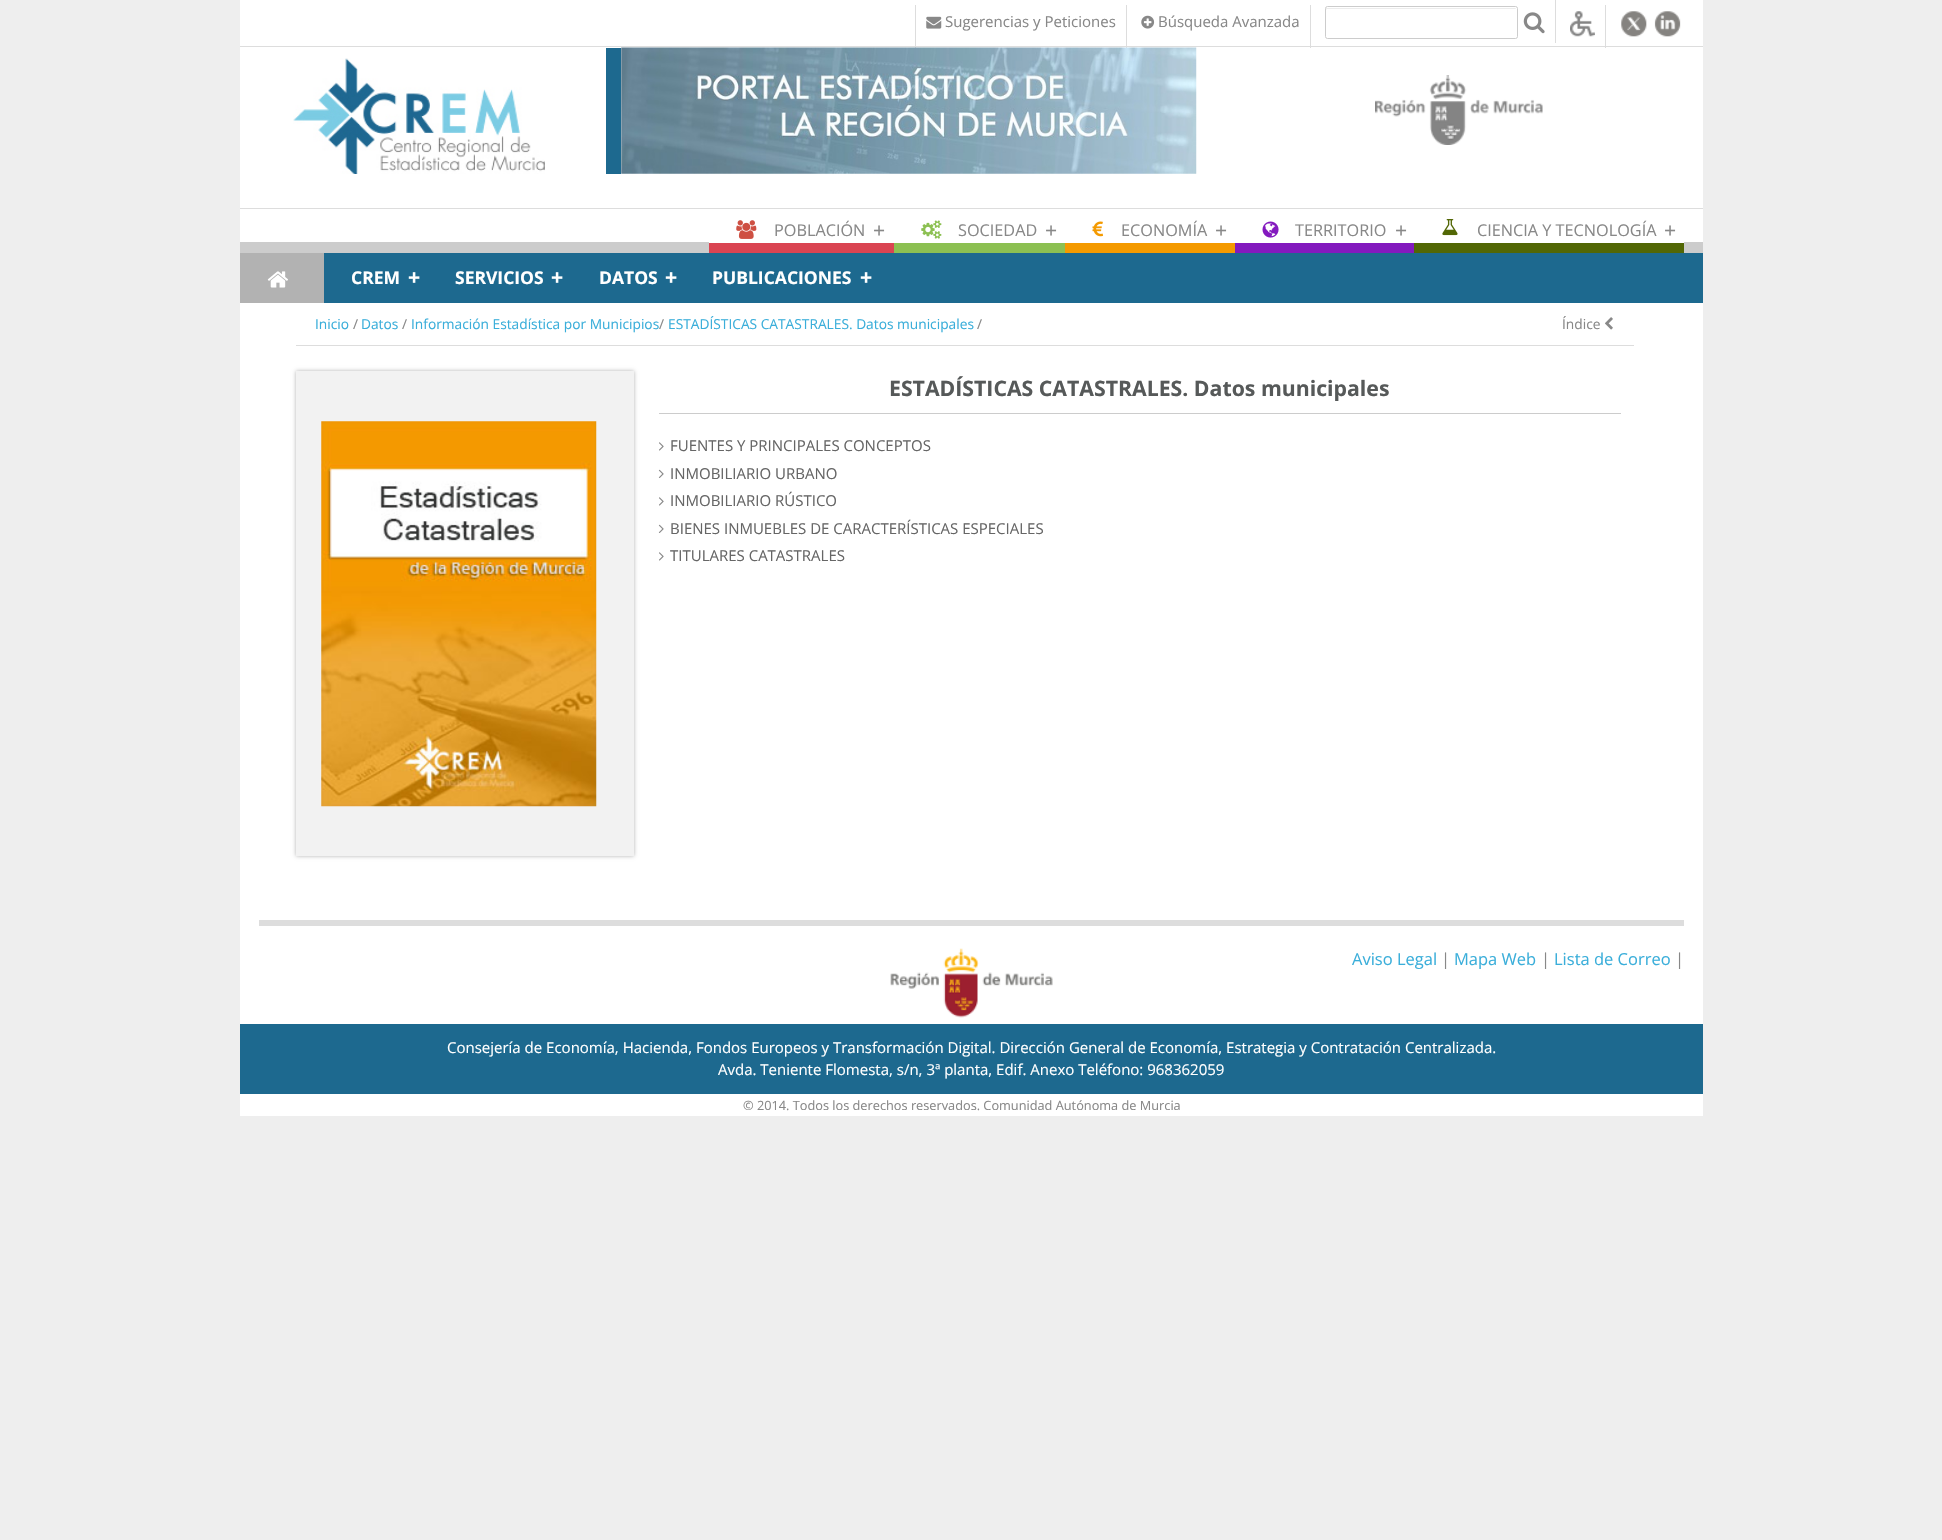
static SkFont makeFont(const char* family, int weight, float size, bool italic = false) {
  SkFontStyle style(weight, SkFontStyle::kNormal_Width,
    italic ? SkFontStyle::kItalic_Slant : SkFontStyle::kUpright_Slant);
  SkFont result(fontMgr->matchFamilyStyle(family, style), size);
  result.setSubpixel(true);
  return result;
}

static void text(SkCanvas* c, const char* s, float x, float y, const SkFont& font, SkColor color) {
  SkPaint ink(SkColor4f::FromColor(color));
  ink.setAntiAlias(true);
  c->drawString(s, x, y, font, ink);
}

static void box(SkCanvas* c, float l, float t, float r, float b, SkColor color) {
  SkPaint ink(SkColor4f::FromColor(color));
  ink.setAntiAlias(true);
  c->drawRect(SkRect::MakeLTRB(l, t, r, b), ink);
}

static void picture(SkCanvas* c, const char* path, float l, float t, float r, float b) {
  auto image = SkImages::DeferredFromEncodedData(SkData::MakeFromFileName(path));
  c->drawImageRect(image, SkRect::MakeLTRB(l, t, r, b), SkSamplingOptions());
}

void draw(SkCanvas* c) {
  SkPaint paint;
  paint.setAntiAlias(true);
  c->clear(0xffeeeeee);
  box(c, 240, 0, 1703, 242, 0xffffffff);
  box(c, 240, 46, 1703, 47, 0xffdddddd);
  box(c, 1126, 5, 1127, 48, 0xffdddddd);
  box(c, 915, 5, 916, 48, 0xffdddddd);
  picture(c, "img_01.png", 926, 16, 942, 29);
  SkFont face1 = makeFont("Open Sans", 400, 15);
  text(c, "Sugerencias y Peticiones", 945, 27, face1, 0xff888888);
  box(c, 1310, 5, 1311, 48, 0xffdddddd);
  picture(c, "img_02.png", 1141, 15, 1155, 29);
  text(c, "Búsqueda Avanzada", 1158, 27, face1, 0xff888888);
  box(c, 1555, 0, 1556, 43, 0xffdddddd);
  paint.setColor(0xffececec);
  c->drawPath(SkPathBuilder().moveTo(1328, 9).lineTo(1516, 9).lineTo(1516, 10).cubicTo(1516, 9, 1516, 8, 1515, 8).lineTo(1326, 8).lineTo(1326, 10).cubicTo(1326, 9, 1327, 9, 1328, 9).close().detach(), paint);
  paint.setStyle(SkPaint::kStroke_Style);
  paint.setStrokeWidth(1);
  paint.setColor(0xffcccccc);
  c->drawRoundRect(SkRect::MakeLTRB(1325.5f, 6.5f, 1517.5f, 38.5f), 2, 2, paint);
  picture(c, "img_03.png", 1523, 12, 1545, 34);
  box(c, 1605, 5, 1606, 48, 0xffdddddd);
  picture(c, "img_04.png", 1570, 11, 1595, 37);
  picture(c, "img_05.png", 1621, 11, 1647, 37);
  picture(c, "img_06.png", 1654, 11, 1681, 37);
  picture(c, "img_07.png", 293, 58, 545, 174);
  box(c, 606, 48, 621, 174, 0xff1d698f);
  picture(c, "img_08.png", 621, 47, 1197, 174);
  picture(c, "img_09.png", 1375, 75, 1543, 145);
  box(c, 240, 303, 1703, 1116, 0xffffffff);
  box(c, 240, 242, 1703, 253, 0xffcccccc);
  box(c, 240, 208, 1703, 209, 0xffdddddd);
  box(c, 709, 242, 1684, 243, 0xffffffff);
  box(c, 709, 243, 894, 253, 0xffda4452);
  picture(c, "img_10.png", 736, 220, 757, 239);
  SkFont face2 = makeFont("Open Sans", 400, 16.25f);
  text(c, "POBLACIÓN", 774, 236, face2, 0xff888888);
  SkFont face3 = makeFont("Open Sans", 400, 21.25f);
  text(c, "+", 873, 238, face3, 0xff888888);
  box(c, 894, 243, 1065, 253, 0xff8cc052);
  picture(c, "img_11.png", 921, 220, 942, 239);
  text(c, "SOCIEDAD", 958, 236, face2, 0xff888888);
  text(c, "+", 1045, 238, face3, 0xff888888);
  box(c, 1065, 243, 1235, 253, 0xfff49a00);
  picture(c, "img_12.png", 1092, 221, 1104, 237);
  text(c, "ECONOMÍA", 1121, 236, face2, 0xff888888);
  text(c, "+", 1215, 238, face3, 0xff888888);
  box(c, 1235, 243, 1414, 253, 0xff8319be);
  picture(c, "img_13.png", 1262, 221, 1279, 238);
  text(c, "TERRITORIO", 1295, 236, face2, 0xff888888);
  text(c, "+", 1395, 238, face3, 0xff888888);
  box(c, 1414, 243, 1684, 253, 0xff526705);
  picture(c, "img_14.png", 1442, 219, 1458, 236);
  text(c, "CIENCIA Y TECNOLOGÍA", 1477, 236, face2, 0xff888888);
  text(c, "+", 1664, 238, face3, 0xff888888);
  box(c, 324, 253, 1703, 303, 0xff1d698f);
  box(c, 240, 253, 324, 303, 0xffb2b2b2);
  picture(c, "img_15.png", 267, 271, 288, 288);
  SkFont face4 = makeFont("Open Sans", 700, 17.5f);
  text(c, "CREM", 351, 284, face4, 0xffffffff);
  SkFont face5 = makeFont("Open Sans", 700, 21.25f);
  text(c, "+", 408, 285, face5, 0xffffffff);
  text(c, "SERVICIOS", 455, 284, face4, 0xffffffff);
  text(c, "+", 551, 285, face5, 0xffffffff);
  text(c, "DATOS", 599, 284, face4, 0xffffffff);
  text(c, "+", 665, 285, face5, 0xffffffff);
  text(c, "PUBLICACIONES", 712, 284, face4, 0xffffffff);
  text(c, "+", 860, 285, face5, 0xffffffff);
  SkFont face6 = makeFont("Open Sans", 400, 13.75f);
  text(c, "Inicio", 315, 329, face6, 0xff3aaeda);
  text(c, "/", 353, 329, face6, 0xff888888);
  text(c, "Datos", 361, 329, face6, 0xff3aaeda);
  text(c, "/", 402, 329, face6, 0xff888888);
  text(c, "Información Estadística por Municipios", 411, 329, face6, 0xff3aaeda);
  text(c, "/", 659, 329, face6, 0xff888888);
  text(c, "ESTADÍSTICAS CATASTRALES. Datos municipales", 668, 329, face6, 0xff3aaeda);
  text(c, "/", 977, 329, face6, 0xff888888);
  box(c, 296, 345, 1634, 346, 0xffdddddd);
  text(c, "Índice", 1562, 329, face6, 0xff888888);
  picture(c, "img_16.png", 1605, 317, 1613, 330);
  paint.setStyle(SkPaint::kFill_Style);
  paint.setColor(0x4d000000);
  paint.setMaskFilter(SkMaskFilter::MakeBlur(kNormal_SkBlurStyle, 2));
  c->drawRect(SkRect::MakeLTRB(296, 371, 634, 856), paint);
  paint.setMaskFilter(nullptr);
  box(c, 296, 371, 634, 856, 0xfff2f2f2);
  picture(c, "img_17.png", 321, 421, 597, 807);
  box(c, 659, 413, 1621, 414, 0xffcccccc);
  text(c, "ESTADÍSTICAS CATASTRALES. Datos municipales", 889, 396, face5, 0xff565959);
  picture(c, "img_18.png", 659, 442, 664, 451);
  text(c, "FUENTES Y PRINCIPALES CONCEPTOS", 670, 451, face1, 0xff666666);
  picture(c, "img_19.png", 658, 469, 664, 478);
  text(c, "INMOBILIARIO URBANO", 670, 479, face1, 0xff666666);
  picture(c, "img_18.png", 659, 497, 664, 506);
  text(c, "INMOBILIARIO RÚSTICO", 670, 506, face1, 0xff666666);
  picture(c, "img_19.png", 658, 524, 664, 533);
  text(c, "BIENES INMUEBLES DE CARACTERÍSTICAS ESPECIALES", 670, 534, face1, 0xff666666);
  picture(c, "img_18.png", 659, 552, 664, 561);
  text(c, "TITULARES CATASTRALES", 670, 561, face1, 0xff666666);
  box(c, 259, 920, 1684, 926, 0xffdddddd);
  picture(c, "img_20.png", 890, 948, 1053, 1018);
  SkFont face7 = makeFont("Open Sans", 400, 16.5f);
  text(c, "Aviso Legal", 1352, 965, face7, 0xff3aaeda);
  text(c, "|", 1441, 965, face7, 0xff888888);
  text(c, "Mapa Web", 1454, 965, face7, 0xff3aaeda);
  text(c, "|", 1541, 965, face7, 0xff888888);
  text(c, "Lista de Correo", 1554, 965, face7, 0xff3aaeda);
  text(c, "|", 1675, 965, face7, 0xff888888);
  box(c, 240, 1024, 1703, 1094, 0xff1d698f);
  text(c, "Consejería de Economía, Hacienda, Fondos Europeos y Transformación Digital. Dirección General de Economía, Estrategia y Contratación Centralizada.", 447, 1053, face1, 0xffffffff);
  text(c, "Avda. Teniente Flomesta, s/n, 3ª planta, Edif. Anexo Teléfono: 968362059", 718, 1075, face1, 0xffffffff);
  SkFont face8 = makeFont("Open Sans", 400, 12.75f);
  text(c, "© 2014. Todos los derechos reservados. Comunidad Autónoma de Murcia", 743, 1110, face8, 0xff888888);
}
